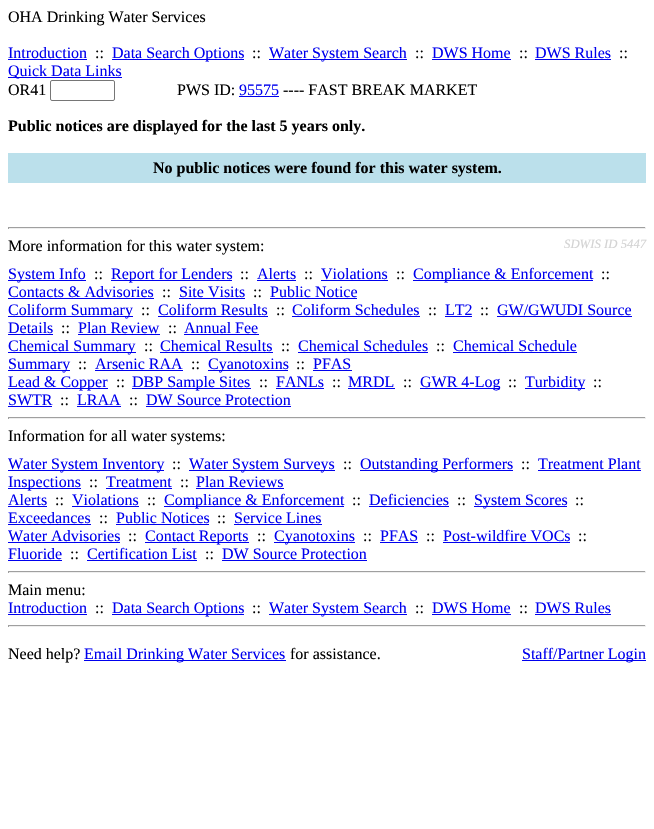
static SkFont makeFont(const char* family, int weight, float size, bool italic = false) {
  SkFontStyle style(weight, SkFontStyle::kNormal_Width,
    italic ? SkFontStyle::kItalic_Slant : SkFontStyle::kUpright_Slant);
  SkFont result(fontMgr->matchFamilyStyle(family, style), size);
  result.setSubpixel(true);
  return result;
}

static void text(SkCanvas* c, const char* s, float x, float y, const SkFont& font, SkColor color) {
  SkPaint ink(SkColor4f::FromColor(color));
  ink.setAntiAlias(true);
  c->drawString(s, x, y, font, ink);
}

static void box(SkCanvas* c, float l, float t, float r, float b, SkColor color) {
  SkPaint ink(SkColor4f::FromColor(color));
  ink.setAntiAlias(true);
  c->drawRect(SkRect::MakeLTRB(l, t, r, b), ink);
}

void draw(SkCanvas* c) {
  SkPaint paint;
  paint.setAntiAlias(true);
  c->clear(0xffffffff);
  SkFont face1 = makeFont("Liberation Serif", 400, 16);
  text(c, "OHA Drinking Water Services", 8, 22, face1, 0xff000000);
  text(c, "Introduction", 8, 58, face1, 0xff0000ee);
  box(c, 8, 59, 87, 60, 0xff0000ee);
  text(c, "::", 95, 58, face1, 0xff000000);
  box(c, 112, 59, 244, 60, 0xff0000ee);
  text(c, "Data Search Options", 112, 58, face1, 0xff0000ee);
  text(c, "::", 252, 58, face1, 0xff000000);
  box(c, 269, 59, 407, 60, 0xff0000ee);
  text(c, "Water System Search", 269, 58, face1, 0xff0000ee);
  text(c, "::", 415, 58, face1, 0xff000000);
  text(c, "DWS Home", 432, 58, face1, 0xff0000ee);
  box(c, 432, 59, 511, 60, 0xff0000ee);
  text(c, "::", 519, 58, face1, 0xff000000);
  text(c, "DWS Rules", 535, 58, face1, 0xff0000ee);
  box(c, 535, 59, 611, 60, 0xff0000ee);
  text(c, "::", 619, 58, face1, 0xff000000);
  box(c, 8, 77, 122, 78, 0xff0000ee);
  text(c, "Quick Data Links", 8, 76, face1, 0xff0000ee);
  text(c, "OR41", 8, 95, face1, 0xff000000);
  paint.setStyle(SkPaint::kStroke_Style);
  paint.setStrokeWidth(1);
  paint.setColor(0xff767676);
  c->drawRoundRect(SkRect::MakeLTRB(50.5f, 80.5f, 114.5f, 100.5f), 1.5f, 1.5f, paint);
  text(c, "PWS ID:", 177, 95, face1, 0xff000000);
  text(c, "95575", 239, 95, face1, 0xff0000ee);
  box(c, 239, 96, 279, 97, 0xff0000ee);
  text(c, "---- FAST BREAK MARKET", 283, 95, face1, 0xff000000);
  SkFont face2 = makeFont("Liberation Serif", 700, 16);
  text(c, "Public notices are displayed for the last 5 years only.", 8, 131, face2, 0xff000000);
  box(c, 8, 153, 646, 183, 0xffbbe0eb);
  text(c, "No public notices were found for this water system.", 153, 173, face2, 0xff000000);
  box(c, 8, 227, 646, 228, 0xff9f9f9f);
  box(c, 645, 227, 646, 229, 0xffeeeeee);
  box(c, 8, 228, 646, 229, 0xffeeeeee);
  box(c, 8, 227, 9, 229, 0xff9f9f9f);
  text(c, "More information for this water system:", 8, 251, face1, 0xff000000);
  SkFont face3 = makeFont("Liberation Serif", 400, 12.75f, true);
  text(c, "SDWIS ID 5447", 564, 248, face3, 0xffd3d3d3);
  box(c, 8, 280, 86, 281, 0xff0000ee);
  text(c, "System Info", 8, 279, face1, 0xff0000ee);
  text(c, "::", 94, 279, face1, 0xff000000);
  box(c, 111, 280, 232, 281, 0xff0000ee);
  text(c, "Report for Lenders", 111, 279, face1, 0xff0000ee);
  text(c, "::", 240, 279, face1, 0xff000000);
  text(c, "Alerts", 257, 279, face1, 0xff0000ee);
  box(c, 257, 280, 296, 281, 0xff0000ee);
  text(c, "::", 304, 279, face1, 0xff000000);
  text(c, "Violations", 321, 279, face1, 0xff0000ee);
  box(c, 321, 280, 388, 281, 0xff0000ee);
  text(c, "::", 396, 279, face1, 0xff000000);
  box(c, 413, 280, 593, 281, 0xff0000ee);
  text(c, "Compliance & Enforcement", 413, 279, face1, 0xff0000ee);
  text(c, "::", 601, 279, face1, 0xff000000);
  text(c, "Contacts & Advisories", 8, 297, face1, 0xff0000ee);
  box(c, 8, 298, 154, 299, 0xff0000ee);
  text(c, "::", 162, 297, face1, 0xff000000);
  text(c, "Site Visits", 179, 297, face1, 0xff0000ee);
  box(c, 179, 298, 245, 299, 0xff0000ee);
  text(c, "::", 253, 297, face1, 0xff000000);
  text(c, "Public Notice", 270, 297, face1, 0xff0000ee);
  box(c, 270, 298, 357, 299, 0xff0000ee);
  box(c, 8, 316, 133, 317, 0xff0000ee);
  text(c, "Coliform Summary", 8, 315, face1, 0xff0000ee);
  text(c, "::", 141, 315, face1, 0xff000000);
  text(c, "Coliform Results", 158, 315, face1, 0xff0000ee);
  box(c, 158, 316, 268, 317, 0xff0000ee);
  text(c, "::", 276, 315, face1, 0xff000000);
  text(c, "Coliform Schedules", 292, 315, face1, 0xff0000ee);
  box(c, 292, 316, 420, 317, 0xff0000ee);
  text(c, "::", 428, 315, face1, 0xff000000);
  text(c, "LT2", 445, 315, face1, 0xff0000ee);
  box(c, 445, 316, 472, 317, 0xff0000ee);
  text(c, "::", 480, 315, face1, 0xff000000);
  text(c, "GW/GWUDI Source", 497, 315, face1, 0xff0000ee);
  box(c, 497, 316, 632, 317, 0xff0000ee);
  text(c, "Details", 8, 333, face1, 0xff0000ee);
  box(c, 8, 334, 53, 335, 0xff0000ee);
  text(c, "::", 61, 333, face1, 0xff000000);
  text(c, "Plan Review", 78, 333, face1, 0xff0000ee);
  box(c, 78, 334, 160, 335, 0xff0000ee);
  text(c, "::", 168, 333, face1, 0xff000000);
  text(c, "Annual Fee", 184, 333, face1, 0xff0000ee);
  box(c, 184, 334, 259, 335, 0xff0000ee);
  box(c, 8, 352, 136, 353, 0xff0000ee);
  text(c, "Chemical Summary", 8, 351, face1, 0xff0000ee);
  text(c, "::", 144, 351, face1, 0xff000000);
  text(c, "Chemical Results", 160, 351, face1, 0xff0000ee);
  box(c, 160, 352, 273, 353, 0xff0000ee);
  text(c, "::", 281, 351, face1, 0xff000000);
  text(c, "Chemical Schedules", 298, 351, face1, 0xff0000ee);
  box(c, 298, 352, 428, 353, 0xff0000ee);
  text(c, "::", 436, 351, face1, 0xff000000);
  text(c, "Chemical Schedule", 453, 351, face1, 0xff0000ee);
  box(c, 453, 352, 577, 353, 0xff0000ee);
  box(c, 8, 370, 70, 371, 0xff0000ee);
  text(c, "Summary", 8, 369, face1, 0xff0000ee);
  text(c, "::", 78, 369, face1, 0xff000000);
  text(c, "Arsenic RAA", 95, 369, face1, 0xff0000ee);
  box(c, 95, 370, 183, 371, 0xff0000ee);
  text(c, "::", 191, 369, face1, 0xff000000);
  box(c, 208, 370, 288, 371, 0xff0000ee);
  text(c, "Cyanotoxins", 208, 369, face1, 0xff0000ee);
  text(c, "::", 296, 369, face1, 0xff000000);
  text(c, "PFAS", 313, 369, face1, 0xff0000ee);
  box(c, 313, 370, 352, 371, 0xff0000ee);
  box(c, 8, 388, 108, 389, 0xff0000ee);
  text(c, "Lead & Copper", 8, 387, face1, 0xff0000ee);
  text(c, "::", 116, 387, face1, 0xff000000);
  box(c, 132, 388, 251, 389, 0xff0000ee);
  text(c, "DBP Sample Sites", 132, 387, face1, 0xff0000ee);
  text(c, "::", 259, 387, face1, 0xff000000);
  text(c, "FANLs", 276, 387, face1, 0xff0000ee);
  box(c, 276, 388, 324, 389, 0xff0000ee);
  text(c, "::", 332, 387, face1, 0xff000000);
  text(c, "MRDL", 348, 387, face1, 0xff0000ee);
  box(c, 348, 388, 395, 389, 0xff0000ee);
  text(c, "::", 403, 387, face1, 0xff000000);
  box(c, 420, 388, 500, 389, 0xff0000ee);
  text(c, "GWR 4-Log", 420, 387, face1, 0xff0000ee);
  text(c, "::", 508, 387, face1, 0xff000000);
  box(c, 525, 388, 585, 389, 0xff0000ee);
  text(c, "Turbidity", 525, 387, face1, 0xff0000ee);
  text(c, "::", 593, 387, face1, 0xff000000);
  text(c, "SWTR", 8, 405, face1, 0xff0000ee);
  box(c, 8, 406, 52, 407, 0xff0000ee);
  text(c, "::", 60, 405, face1, 0xff000000);
  text(c, "LRAA", 77, 405, face1, 0xff0000ee);
  box(c, 77, 406, 121, 407, 0xff0000ee);
  text(c, "::", 129, 405, face1, 0xff000000);
  text(c, "DW Source Protection", 146, 405, face1, 0xff0000ee);
  box(c, 146, 406, 291, 407, 0xff0000ee);
  box(c, 8, 417, 646, 418, 0xff9f9f9f);
  box(c, 645, 417, 646, 419, 0xffeeeeee);
  box(c, 8, 418, 646, 419, 0xffeeeeee);
  box(c, 8, 417, 9, 419, 0xff9f9f9f);
  text(c, "Information for all water systems:", 8, 441, face1, 0xff000000);
  box(c, 8, 470, 164, 471, 0xff0000ee);
  text(c, "Water System Inventory", 8, 469, face1, 0xff0000ee);
  text(c, "::", 172, 469, face1, 0xff000000);
  box(c, 189, 470, 335, 471, 0xff0000ee);
  text(c, "Water System Surveys", 189, 469, face1, 0xff0000ee);
  text(c, "::", 343, 469, face1, 0xff000000);
  box(c, 360, 470, 513, 471, 0xff0000ee);
  text(c, "Outstanding Performers", 360, 469, face1, 0xff0000ee);
  text(c, "::", 521, 469, face1, 0xff000000);
  text(c, "Treatment Plant", 538, 469, face1, 0xff0000ee);
  box(c, 538, 470, 641, 471, 0xff0000ee);
  box(c, 8, 488, 81, 489, 0xff0000ee);
  text(c, "Inspections", 8, 487, face1, 0xff0000ee);
  text(c, "::", 89, 487, face1, 0xff000000);
  text(c, "Treatment", 106, 487, face1, 0xff0000ee);
  box(c, 106, 488, 172, 489, 0xff0000ee);
  text(c, "::", 180, 487, face1, 0xff000000);
  text(c, "Plan Reviews", 196, 487, face1, 0xff0000ee);
  box(c, 196, 488, 284, 489, 0xff0000ee);
  text(c, "Alerts", 8, 505, face1, 0xff0000ee);
  box(c, 8, 506, 47, 507, 0xff0000ee);
  text(c, "::", 55, 505, face1, 0xff000000);
  text(c, "Violations", 72, 505, face1, 0xff0000ee);
  box(c, 72, 506, 139, 507, 0xff0000ee);
  text(c, "::", 147, 505, face1, 0xff000000);
  box(c, 164, 506, 344, 507, 0xff0000ee);
  text(c, "Compliance & Enforcement", 164, 505, face1, 0xff0000ee);
  text(c, "::", 352, 505, face1, 0xff000000);
  text(c, "Deficiencies", 369, 505, face1, 0xff0000ee);
  box(c, 369, 506, 449, 507, 0xff0000ee);
  text(c, "::", 457, 505, face1, 0xff000000);
  box(c, 474, 506, 567, 507, 0xff0000ee);
  text(c, "System Scores", 474, 505, face1, 0xff0000ee);
  text(c, "::", 575, 505, face1, 0xff000000);
  text(c, "Exceedances", 8, 523, face1, 0xff0000ee);
  box(c, 8, 524, 91, 525, 0xff0000ee);
  text(c, "::", 99, 523, face1, 0xff000000);
  text(c, "Public Notices", 116, 523, face1, 0xff0000ee);
  box(c, 116, 524, 209, 525, 0xff0000ee);
  text(c, "::", 217, 523, face1, 0xff000000);
  text(c, "Service Lines", 234, 523, face1, 0xff0000ee);
  box(c, 234, 524, 322, 525, 0xff0000ee);
  text(c, "Water Advisories", 8, 541, face1, 0xff0000ee);
  box(c, 8, 542, 120, 543, 0xff0000ee);
  text(c, "::", 128, 541, face1, 0xff000000);
  box(c, 145, 542, 249, 543, 0xff0000ee);
  text(c, "Contact Reports", 145, 541, face1, 0xff0000ee);
  text(c, "::", 257, 541, face1, 0xff000000);
  box(c, 274, 542, 355, 543, 0xff0000ee);
  text(c, "Cyanotoxins", 274, 541, face1, 0xff0000ee);
  text(c, "::", 363, 541, face1, 0xff000000);
  text(c, "PFAS", 380, 541, face1, 0xff0000ee);
  box(c, 380, 542, 418, 543, 0xff0000ee);
  text(c, "::", 426, 541, face1, 0xff000000);
  text(c, "Post-wildfire VOCs", 443, 541, face1, 0xff0000ee);
  box(c, 443, 542, 570, 543, 0xff0000ee);
  text(c, "::", 578, 541, face1, 0xff000000);
  text(c, "Fluoride", 8, 559, face1, 0xff0000ee);
  box(c, 8, 560, 62, 561, 0xff0000ee);
  text(c, "::", 70, 559, face1, 0xff000000);
  text(c, "Certification List", 87, 559, face1, 0xff0000ee);
  box(c, 87, 560, 197, 561, 0xff0000ee);
  text(c, "::", 205, 559, face1, 0xff000000);
  text(c, "DW Source Protection", 222, 559, face1, 0xff0000ee);
  box(c, 222, 560, 367, 561, 0xff0000ee);
  box(c, 8, 571, 646, 572, 0xff9f9f9f);
  box(c, 645, 571, 646, 573, 0xffeeeeee);
  box(c, 8, 572, 646, 573, 0xffeeeeee);
  box(c, 8, 571, 9, 573, 0xff9f9f9f);
  text(c, "Main menu:", 8, 595, face1, 0xff000000);
  text(c, "Introduction", 8, 613, face1, 0xff0000ee);
  box(c, 8, 614, 87, 615, 0xff0000ee);
  text(c, "::", 95, 613, face1, 0xff000000);
  box(c, 112, 614, 244, 615, 0xff0000ee);
  text(c, "Data Search Options", 112, 613, face1, 0xff0000ee);
  text(c, "::", 252, 613, face1, 0xff000000);
  box(c, 269, 614, 407, 615, 0xff0000ee);
  text(c, "Water System Search", 269, 613, face1, 0xff0000ee);
  text(c, "::", 415, 613, face1, 0xff000000);
  text(c, "DWS Home", 432, 613, face1, 0xff0000ee);
  box(c, 432, 614, 511, 615, 0xff0000ee);
  text(c, "::", 519, 613, face1, 0xff000000);
  text(c, "DWS Rules", 535, 613, face1, 0xff0000ee);
  box(c, 535, 614, 611, 615, 0xff0000ee);
  box(c, 8, 625, 646, 626, 0xff9f9f9f);
  box(c, 645, 625, 646, 627, 0xffeeeeee);
  box(c, 8, 626, 646, 627, 0xffeeeeee);
  box(c, 8, 625, 9, 627, 0xff9f9f9f);
  text(c, "Need help?", 8, 659, face1, 0xff000000);
  box(c, 84, 660, 286, 661, 0xff0000ee);
  text(c, "Email Drinking Water Services", 84, 659, face1, 0xff0000ee);
  text(c, "for assistance.", 290, 659, face1, 0xff000000);
  box(c, 522, 660, 646, 661, 0xff0000ee);
  text(c, "Staff/Partner Login", 522, 659, face1, 0xff0000ee);
}
